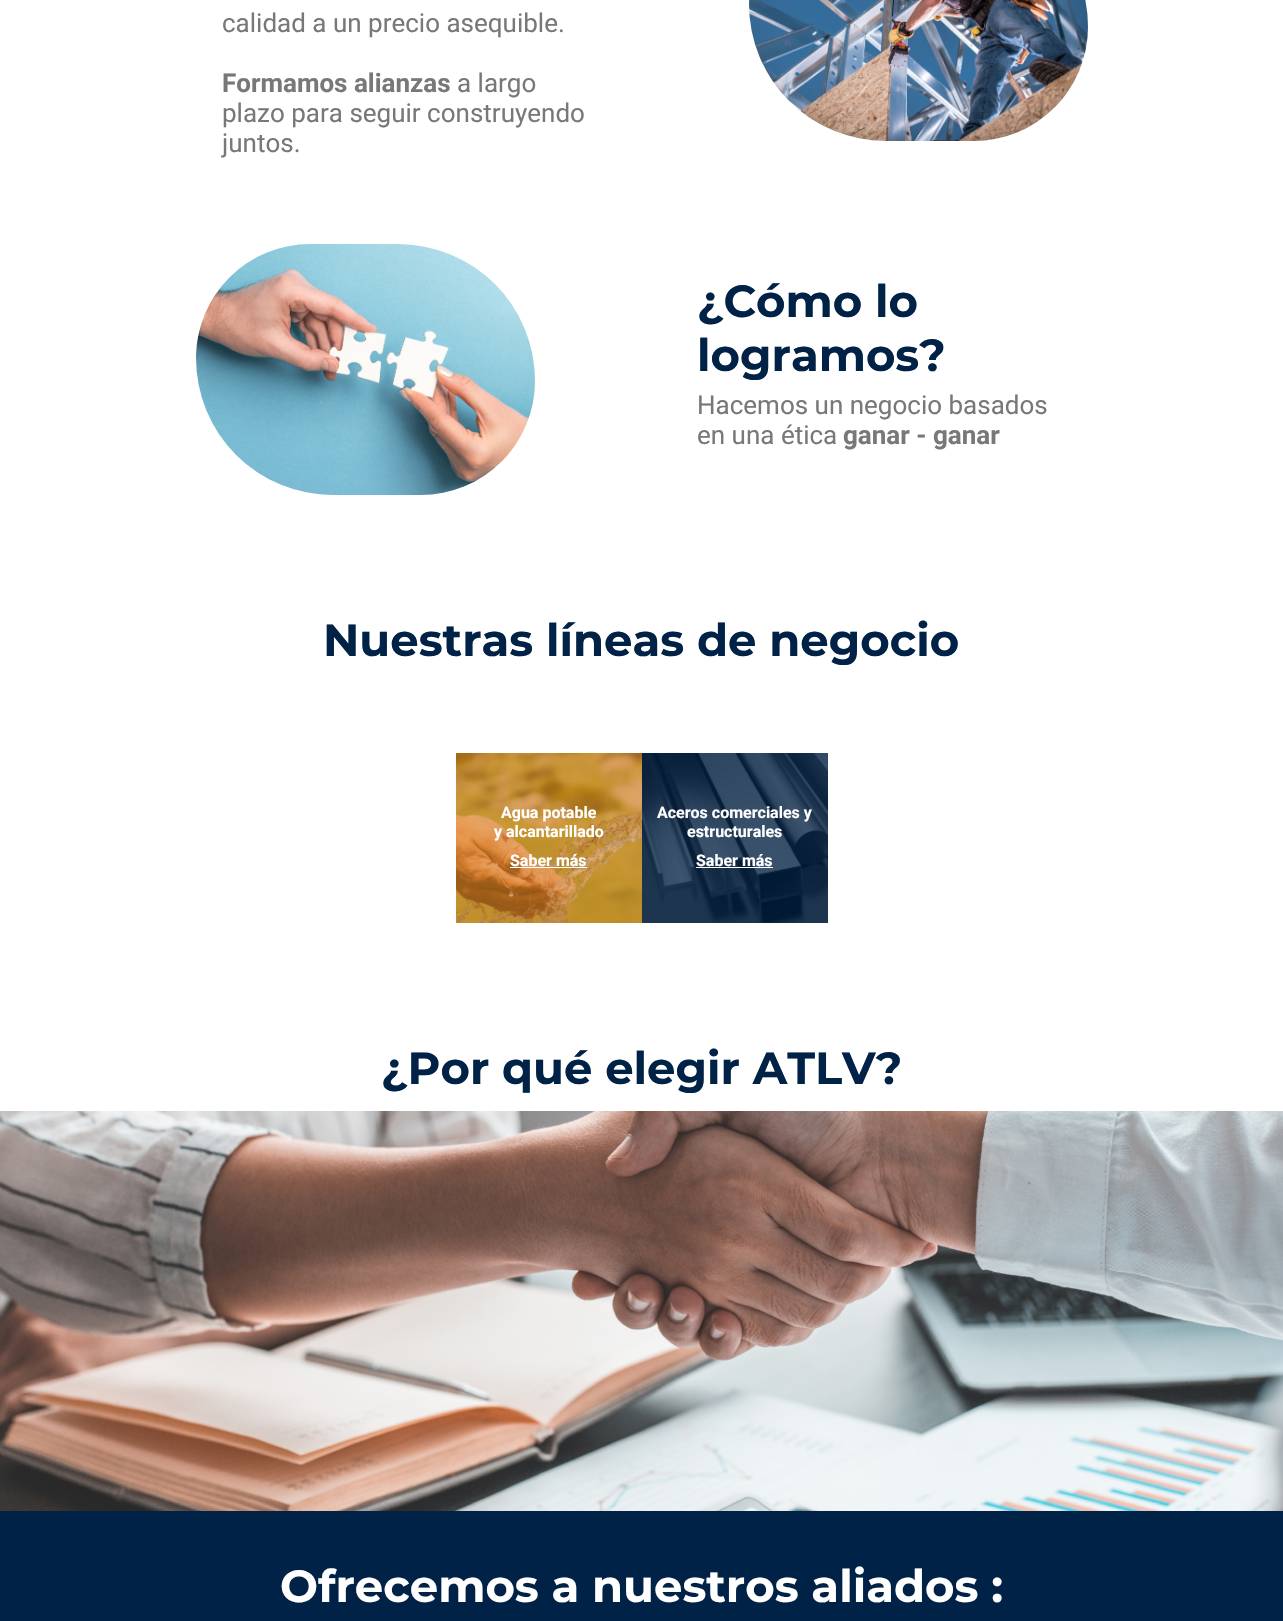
static SkFont makeFont(const char* family, int weight, float size, bool italic = false) {
  SkFontStyle style(weight, SkFontStyle::kNormal_Width,
    italic ? SkFontStyle::kItalic_Slant : SkFontStyle::kUpright_Slant);
  SkFont result(fontMgr->matchFamilyStyle(family, style), size);
  result.setSubpixel(true);
  return result;
}

static void text(SkCanvas* c, const char* s, float x, float y, const SkFont& font, SkColor color) {
  SkPaint ink(SkColor4f::FromColor(color));
  ink.setAntiAlias(true);
  c->drawString(s, x, y, font, ink);
}

static void box(SkCanvas* c, float l, float t, float r, float b, SkColor color) {
  SkPaint ink(SkColor4f::FromColor(color));
  ink.setAntiAlias(true);
  c->drawRect(SkRect::MakeLTRB(l, t, r, b), ink);
}

static void picture(SkCanvas* c, const char* path, float l, float t, float r, float b) {
  auto image = SkImages::DeferredFromEncodedData(SkData::MakeFromFileName(path));
  c->drawImageRect(image, SkRect::MakeLTRB(l, t, r, b), SkSamplingOptions());
}

void draw(SkCanvas* c) {
  SkPaint paint;
  paint.setAntiAlias(true);
  c->clear(0xffffffff);
  SkFont face1 = makeFont("Roboto", 400, 26);
  text(c, "calidad a un precio asequible.", 222, 32, face1, 0xff787878);
  SkFont face2 = makeFont("Roboto", 700, 26);
  text(c, "Formamos alianzas", 222, 92, face2, 0xff787878);
  text(c, "a largo", 457, 92, face1, 0xff787878);
  text(c, "plazo para seguir construyendo", 222, 122, face1, 0xff787878);
  text(c, "juntos.", 222, 152, face1, 0xff787878);
  picture(c, "img_01.png", 749, 0, 1088, 141);
  picture(c, "img_02.png", 196, 244, 535, 495);
  SkFont face3 = makeFont("Montserrat", 700, 45);
  text(c, "¿Cómo lo", 697, 317, face3, 0xff002247);
  text(c, "logramos?", 697, 371, face3, 0xff002247);
  text(c, "Hacemos un negocio basados", 697, 414, face1, 0xff787878);
  text(c, "en una ética", 697, 444, face1, 0xff787878);
  text(c, "ganar - ganar", 843, 444, face2, 0xff787878);
  text(c, "Nuestras líneas de negocio", 323, 656, face3, 0xff002247);
  picture(c, "img_03.png", 456, 753, 642, 923);
  SkFont face4 = makeFont("Roboto", 700, 16);
  text(c, "Agua potable", 501, 818, face4, 0xffffffff);
  text(c, "y alcantarillado", 494, 837, face4, 0xffffffff);
  text(c, "Saber más", 510, 866, face4, 0xffffffff);
  box(c, 510, 867, 587, 868, 0xffffffff);
  picture(c, "img_04.png", 642, 753, 828, 923);
  text(c, "Aceros comerciales y", 657, 818, face4, 0xffffffff);
  text(c, "estructurales", 687, 837, face4, 0xffffffff);
  text(c, "Saber más", 696, 866, face4, 0xffffffff);
  box(c, 696, 867, 773, 868, 0xffffffff);
  text(c, "¿Por qué elegir ATLV?", 381, 1084, face3, 0xff002247);
  picture(c, "img_05.png", 0, 1111, 1283, 1511);
  box(c, 0, 1511, 1283, 1621, 0xff002247);
  text(c, "Ofrecemos a nuestros aliados :", 280, 1602, face3, 0xffffffff);
}
